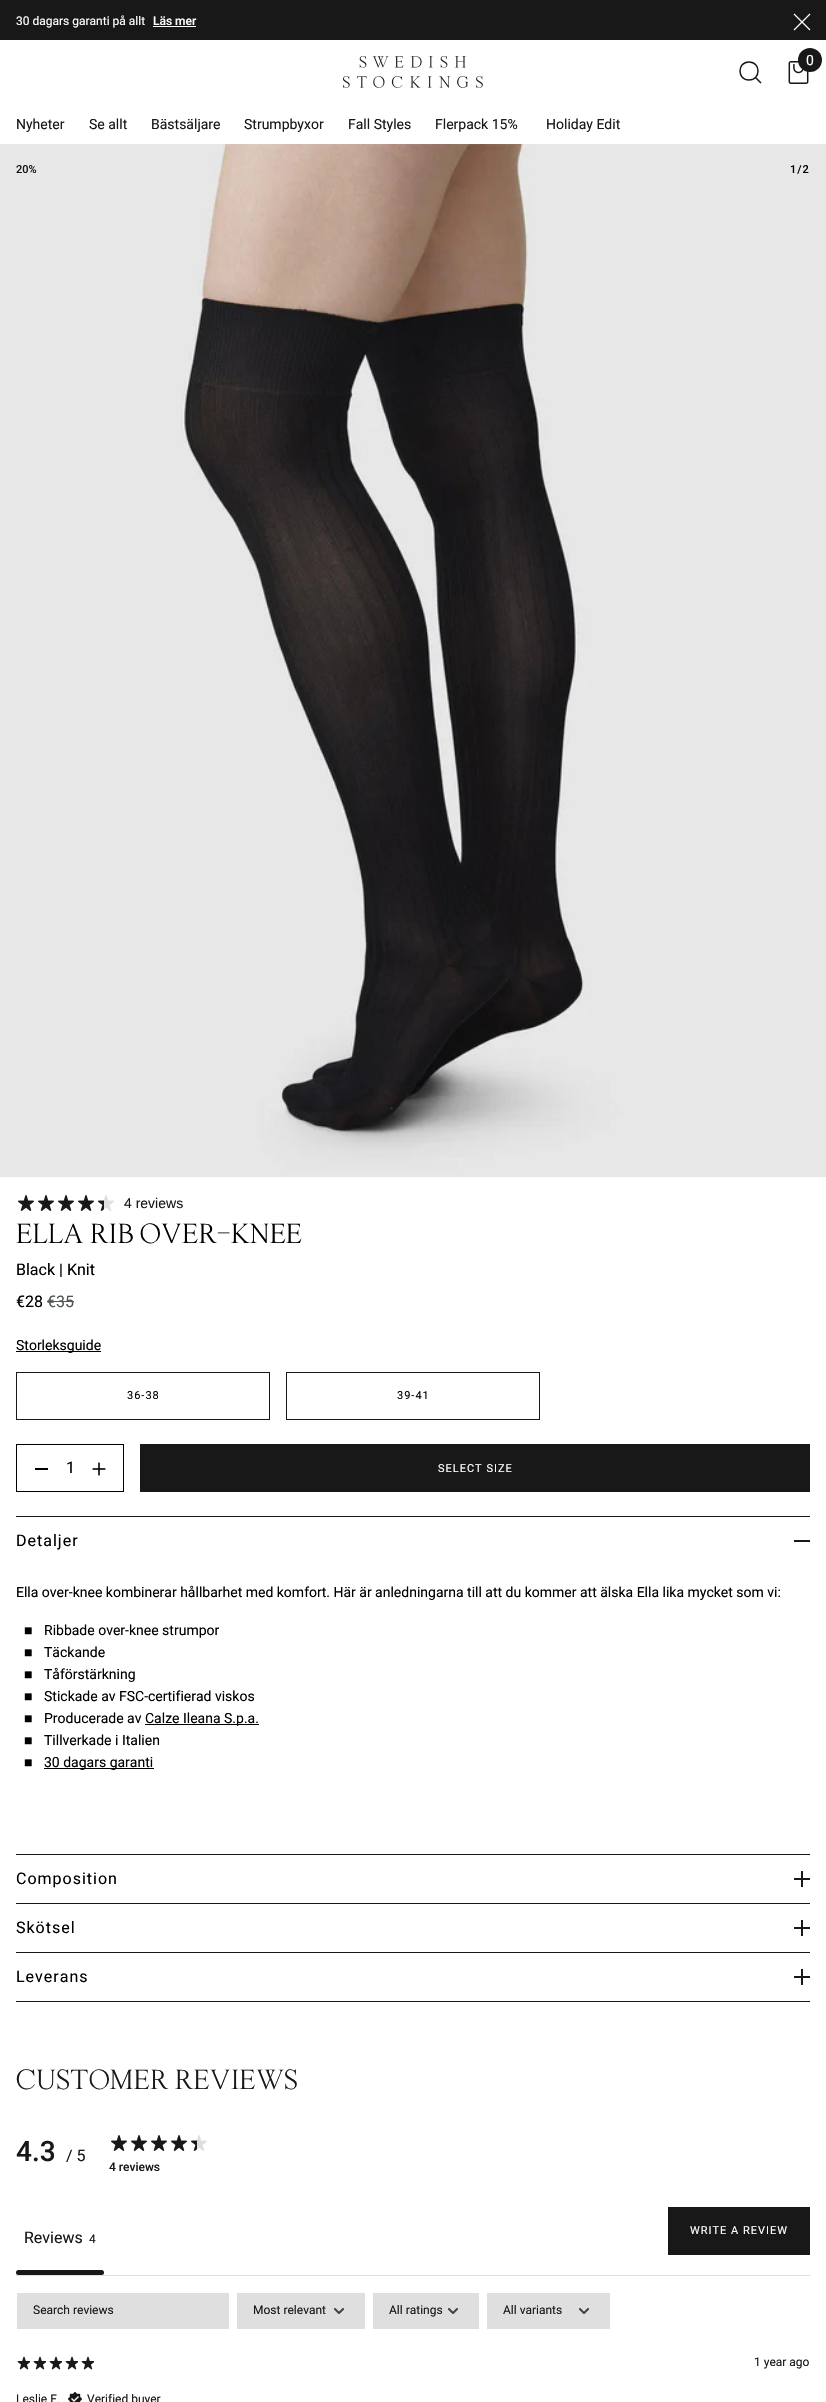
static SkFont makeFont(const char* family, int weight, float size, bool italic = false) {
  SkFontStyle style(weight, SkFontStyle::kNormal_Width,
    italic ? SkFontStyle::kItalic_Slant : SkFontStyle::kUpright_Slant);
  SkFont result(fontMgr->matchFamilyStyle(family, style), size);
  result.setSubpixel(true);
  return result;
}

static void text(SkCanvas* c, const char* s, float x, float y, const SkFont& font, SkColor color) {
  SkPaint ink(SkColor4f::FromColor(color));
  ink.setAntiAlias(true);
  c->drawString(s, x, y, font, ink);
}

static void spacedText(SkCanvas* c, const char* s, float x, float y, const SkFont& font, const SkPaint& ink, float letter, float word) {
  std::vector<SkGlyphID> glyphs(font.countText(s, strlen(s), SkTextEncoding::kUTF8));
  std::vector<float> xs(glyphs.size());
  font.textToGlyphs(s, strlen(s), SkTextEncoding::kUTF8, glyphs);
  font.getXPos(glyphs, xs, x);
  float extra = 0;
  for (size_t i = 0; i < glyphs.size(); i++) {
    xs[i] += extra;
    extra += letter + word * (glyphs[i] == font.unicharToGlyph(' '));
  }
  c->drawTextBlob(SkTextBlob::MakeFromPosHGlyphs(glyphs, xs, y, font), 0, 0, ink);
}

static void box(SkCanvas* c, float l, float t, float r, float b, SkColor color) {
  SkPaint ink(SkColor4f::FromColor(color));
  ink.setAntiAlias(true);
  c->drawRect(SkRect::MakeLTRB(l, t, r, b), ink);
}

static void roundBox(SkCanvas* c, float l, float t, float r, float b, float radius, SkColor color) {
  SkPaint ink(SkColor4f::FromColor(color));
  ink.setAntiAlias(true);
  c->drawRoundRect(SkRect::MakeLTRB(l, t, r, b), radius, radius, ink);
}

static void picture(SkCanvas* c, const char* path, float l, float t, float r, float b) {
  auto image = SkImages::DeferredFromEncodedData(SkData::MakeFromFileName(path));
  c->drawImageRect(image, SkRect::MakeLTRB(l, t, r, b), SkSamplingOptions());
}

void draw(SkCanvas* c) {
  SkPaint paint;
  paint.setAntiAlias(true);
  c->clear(0xffffffff);
  box(c, 0, 0, 826, 40, 0xff181818);
  SkFont face1 = makeFont("Roboto", 400, 12);
  text(c, "30 dagars garanti på allt", 16, 25, face1, 0xffffffff);
  SkFont face2 = makeFont("Roboto", 500, 12);
  text(c, "Läs mer", 153, 25, face2, 0xffffffff);
  box(c, 153, 26, 196, 27, 0xffffffff);
  picture(c, "img_01.png", 793, 13, 811, 31);
  picture(c, "img_02.png", 343, 56, 483, 88);
  paint.setStyle(SkPaint::kStroke_Style);
  paint.setStrokeWidth(1.5f);
  paint.setColor(0xff181818);
  c->drawPath(SkPathBuilder().moveTo(761, 83).lineTo(755, 77).close().moveTo(749, 80).cubicTo(737, 80, 737, 62, 749, 62).cubicTo(761, 62, 761, 80, 749, 80).close().detach(), paint);
  picture(c, "img_03.png", 788, 61, 809, 84);
  paint.setStyle(SkPaint::kFill_Style);
  c->drawCircle(810, 60, 12, paint);
  SkFont face3 = makeFont("Roboto", 400, 14);
  text(c, "0", 806, 65, face3, 0xffffffff);
  text(c, "Nyheter", 16, 129, face3, 0xff181818);
  text(c, "Se allt", 89, 129, face3, 0xff181818);
  text(c, "Bästsäljare", 151, 129, face3, 0xff181818);
  text(c, "Strumpbyxor", 244, 129, face3, 0xff181818);
  text(c, "Fall Styles", 348, 129, face3, 0xff181818);
  text(c, "Flerpack 15%", 435, 129, face3, 0xff181818);
  text(c, "Holiday Edit", 546, 129, face3, 0xff181818);
  picture(c, "img_07.png", 0, 144, 826, 1177);
  SkFont face4 = makeFont("Roboto", 500, 11);
  text(c, "20%", 16, 173, face4, 0xff181818);
  picture(c, "img_04.png", 18, 1195, 34, 1211);
  picture(c, "img_04.png", 38, 1195, 54, 1211);
  picture(c, "img_04.png", 58, 1195, 74, 1211);
  picture(c, "img_04.png", 78, 1195, 94, 1211);
  picture(c, "img_05.png", 98, 1195, 114, 1211);
  SkFont face5 = makeFont("Liberation Sans", 400, 14);
  text(c, "4 reviews", 124, 1208, face5, 0xff181818);
  SkFont face6 = makeFont("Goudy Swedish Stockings", 500, 24);
  text(c, "ELLA RIB OVER-KNEE", 16, 1243, face6, 0xff000000);
  SkFont face7 = makeFont("Roboto", 400, 16);
  text(c, "Black | Knit", 16, 1275, face7, 0xff000000);
  text(c, "€28", 16, 1307, face7, 0xff000000);
  text(c, "€35", 47, 1307, face7, 0xff515556);
  box(c, 47, 1301, 74, 1302, 0xff515556);
  box(c, 16, 1351, 101, 1352, 0xff000000);
  text(c, "Storleksguide", 16, 1350, face3, 0xff000000);
  paint.setStyle(SkPaint::kStroke_Style);
  paint.setStrokeWidth(1);
  c->drawRect(SkRect::MakeLTRB(16.5f, 1372.5f, 269.5f, 1419.5f), paint);
  SkFont face8 = makeFont("Roboto", 400, 11);
  paint.setStyle(SkPaint::kFill_Style);
  paint.setColor(0xff000000);
  spacedText(c, "36-38", 127, 1399, face8, paint, 1, 0);
  paint.setStyle(SkPaint::kStroke_Style);
  paint.setColor(0xff181818);
  c->drawRect(SkRect::MakeLTRB(286.5f, 1372.5f, 539.5f, 1419.5f), paint);
  paint.setStyle(SkPaint::kFill_Style);
  paint.setColor(0xff000000);
  spacedText(c, "39-41", 397, 1399, face8, paint, 1, 0);
  paint.setStyle(SkPaint::kStroke_Style);
  c->drawRect(SkRect::MakeLTRB(16.5f, 1444.5f, 123.5f, 1491.5f), paint);
  box(c, 35, 1468, 48, 1470, 0xff000000);
  text(c, "1", 66, 1473, face7, 0xff000000);
  picture(c, "img_06.png", 92, 1462, 106, 1476);
  box(c, 140, 1444, 810, 1492, 0xff181818);
  paint.setStyle(SkPaint::kFill_Style);
  paint.setColor(0xffffffff);
  spacedText(c, "SELECT SIZE", 438, 1472, face8, paint, 1, 0);
  box(c, 16, 1516, 810, 1517, 0xff181818);
  box(c, 16, 1854, 810, 1855, 0xff181818);
  paint.setColor(0xff000000);
  spacedText(c, "Detaljer", 16, 1546, face7, paint, 1, 0);
  box(c, 794, 1540, 810, 1542, 0xff181818);
  text(c, "Ella over-knee kombinerar hållbarhet med komfort. Här är anledningarna till att du kommer att älska Ella lika mycket som vi:", 16, 1597, face3, 0xff000000);
  text(c, "■", 24, 1635, face5, 0xff000000);
  text(c, "Ribbade over-knee strumpor", 44, 1635, face3, 0xff000000);
  text(c, "■", 24, 1657, face5, 0xff000000);
  text(c, "Täckande", 44, 1657, face3, 0xff000000);
  text(c, "■", 24, 1679, face5, 0xff000000);
  text(c, "Tåförstärkning", 44, 1679, face3, 0xff000000);
  text(c, "■", 24, 1701, face5, 0xff000000);
  text(c, "Stickade av FSC-certifierad viskos", 44, 1701, face3, 0xff000000);
  text(c, "■", 24, 1723, face5, 0xff000000);
  text(c, "Producerade av", 44, 1723, face3, 0xff000000);
  box(c, 145, 1724, 259, 1725, 0xff000000);
  text(c, "Calze Ileana S.p.a.", 145, 1723, face3, 0xff000000);
  text(c, "■", 24, 1745, face5, 0xff000000);
  text(c, "Tillverkade i Italien", 44, 1745, face3, 0xff000000);
  text(c, "■", 24, 1767, face5, 0xff000000);
  box(c, 44, 1768, 154, 1769, 0xff000000);
  text(c, "30 dagars garanti", 44, 1767, face3, 0xff000000);
  box(c, 16, 1903, 810, 1904, 0xff181818);
  spacedText(c, "Composition", 16, 1884, face7, paint, 1, 0);
  box(c, 794, 1878, 810, 1880, 0xff181818);
  box(c, 801, 1871, 803, 1887, 0xff181818);
  box(c, 16, 1952, 810, 1953, 0xff181818);
  spacedText(c, "Skötsel", 16, 1933, face7, paint, 1, 0);
  box(c, 794, 1927, 810, 1929, 0xff181818);
  box(c, 801, 1920, 803, 1936, 0xff181818);
  box(c, 16, 2001, 810, 2002, 0xff181818);
  spacedText(c, "Leverans", 16, 1982, face7, paint, 1, 0);
  box(c, 794, 1976, 810, 1978, 0xff181818);
  box(c, 801, 1969, 803, 1985, 0xff181818);
  spacedText(c, "1/2", 790, 173, face4, paint, 1, 0);
  text(c, "CUSTOMER REVIEWS", 16, 2089, face6, 0xff181818);
  SkFont face9 = makeFont("Roboto", 500, 28);
  text(c, "4.3", 16, 2161, face9, 0xff181818);
  text(c, "/ 5", 66, 2161, face7, 0xff181818);
  picture(c, "img_04.png", 111, 2135, 127, 2151);
  picture(c, "img_04.png", 131, 2135, 147, 2151);
  picture(c, "img_04.png", 151, 2135, 167, 2151);
  picture(c, "img_04.png", 171, 2135, 187, 2151);
  picture(c, "img_05.png", 191, 2135, 207, 2151);
  text(c, "4 reviews", 109, 2171, face2, 0xff181818);
  box(c, 16, 2275, 810, 2276, 0xffdfdfdf);
  box(c, 668, 2207, 810, 2255, 0xff181818);
  paint.setColor(0xffffffff);
  spacedText(c, "WRITE A REVIEW", 690, 2234, face8, paint, 1, 0);
  text(c, "Reviews", 24, 2243, face7, 0xff181818);
  text(c, "4", 89, 2243, face1, 0xff181818);
  roundBox(c, 16, 2270, 104, 2275, 2.5f, 0xff181818);
  box(c, 17, 2293, 229, 2329, 0xffdfdfdf);
  text(c, "Search reviews", 33, 2314, face1, 0xff181818);
  box(c, 237, 2293, 365, 2329, 0xffdfdfdf);
  text(c, "Most relevant", 253, 2314, face1, 0xff181818);
  picture(c, "img_08.png", 334, 2308, 344, 2314);
  box(c, 373, 2293, 479, 2329, 0xffdfdfdf);
  text(c, "All ratings", 389, 2314, face1, 0xff181818);
  picture(c, "img_08.png", 448, 2308, 458, 2314);
  box(c, 487, 2293, 610, 2329, 0xffdfdfdf);
  text(c, "All variants", 503, 2314, face1, 0xff181818);
  picture(c, "img_08.png", 579, 2308, 589, 2314);
  picture(c, "img_09.png", 17, 2356, 31, 2370);
  picture(c, "img_09.png", 33, 2356, 47, 2370);
  picture(c, "img_09.png", 49, 2356, 63, 2370);
  picture(c, "img_09.png", 65, 2356, 79, 2370);
  picture(c, "img_09.png", 81, 2356, 95, 2370);
  text(c, "1 year ago", 754, 2366, face1, 0xff181818);
  text(c, "Leslie F.", 16, 2403, face1, 0xff181818);
  picture(c, "img_10.png", 68, 2392, 82, 2402);
  text(c, "Verified buyer", 87, 2403, face1, 0xff181818);
}
